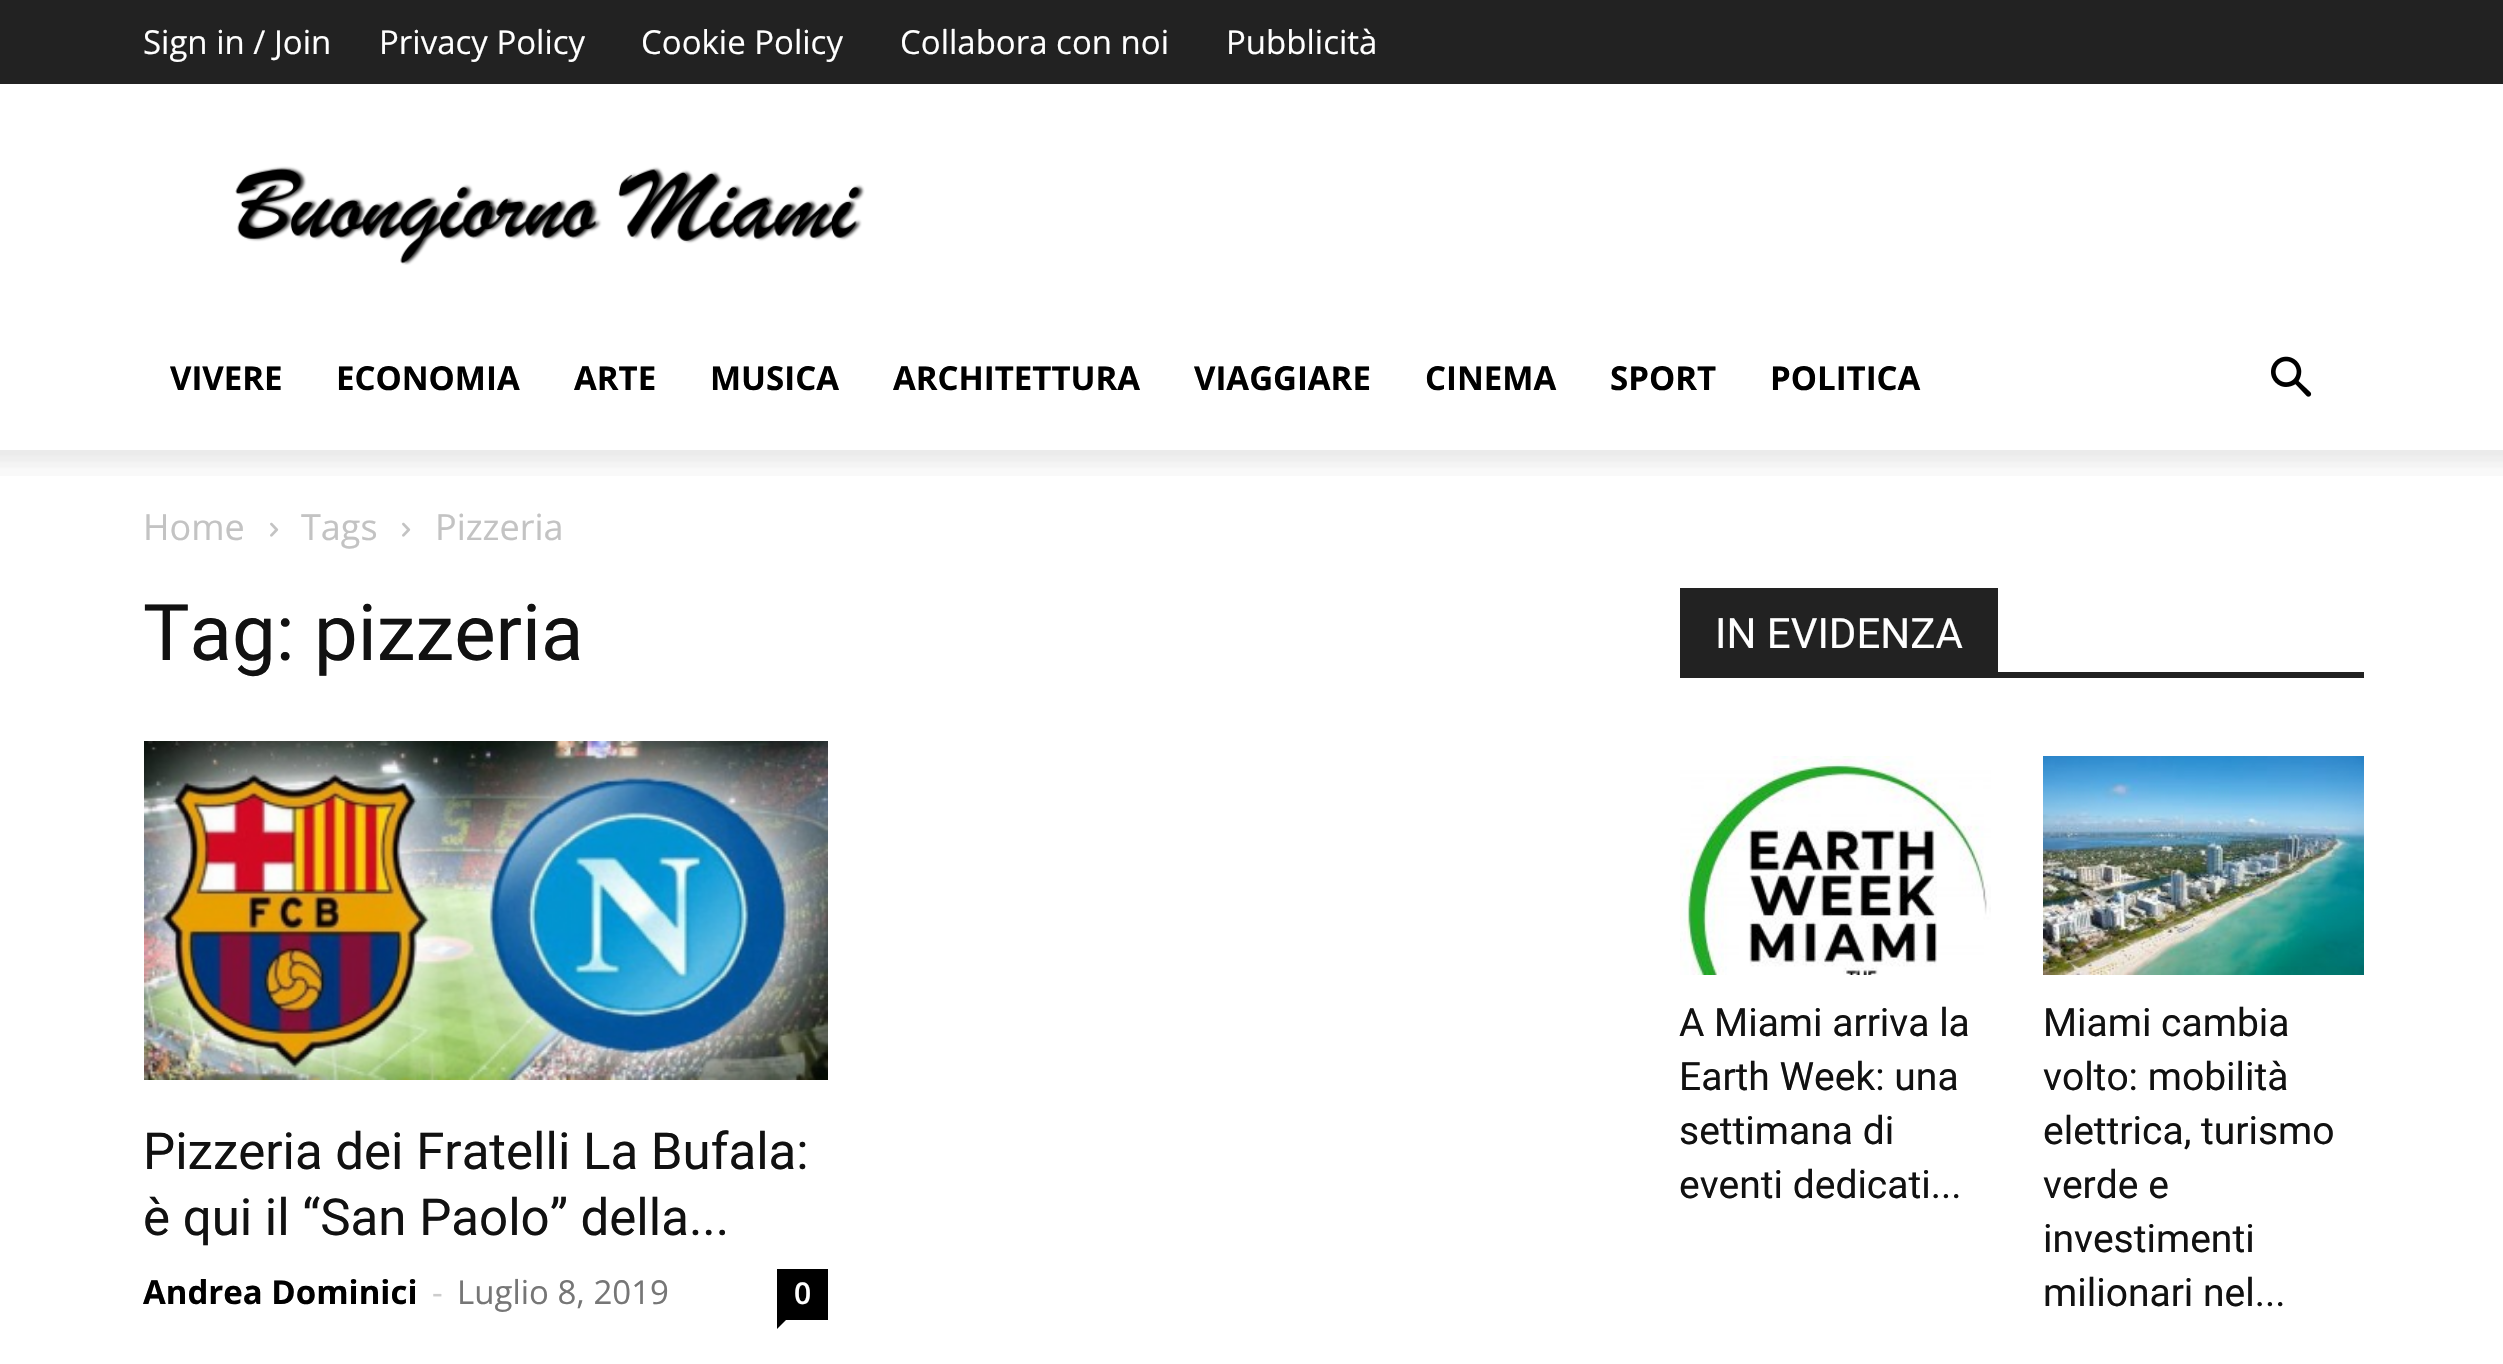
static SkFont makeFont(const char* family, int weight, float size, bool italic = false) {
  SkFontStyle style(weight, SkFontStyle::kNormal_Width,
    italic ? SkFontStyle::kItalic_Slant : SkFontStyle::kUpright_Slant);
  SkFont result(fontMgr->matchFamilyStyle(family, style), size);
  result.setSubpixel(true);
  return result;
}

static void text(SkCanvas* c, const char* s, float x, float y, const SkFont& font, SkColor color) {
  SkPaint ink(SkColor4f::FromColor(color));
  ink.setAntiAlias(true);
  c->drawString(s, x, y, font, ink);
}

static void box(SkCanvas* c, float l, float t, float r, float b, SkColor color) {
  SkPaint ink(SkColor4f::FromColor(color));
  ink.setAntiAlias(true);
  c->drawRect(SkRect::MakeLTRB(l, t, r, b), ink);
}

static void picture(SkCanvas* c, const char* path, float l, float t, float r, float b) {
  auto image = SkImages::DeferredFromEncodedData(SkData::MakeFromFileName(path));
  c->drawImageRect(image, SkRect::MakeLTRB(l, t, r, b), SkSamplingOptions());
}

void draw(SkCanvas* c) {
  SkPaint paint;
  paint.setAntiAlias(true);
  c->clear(0xffffffff);
  box(c, 0, 0, 2503, 84, 0xff222222);
  SkFont face1 = makeFont("Open Sans", 400, 33);
  text(c, "Sign in / Join", 143, 54, face1, 0xffffffff);
  text(c, "Privacy Policy", 379, 54, face1, 0xffffffff);
  text(c, "Cookie Policy", 641, 54, face1, 0xffffffff);
  text(c, "Collabora con noi", 900, 54, face1, 0xffffffff);
  text(c, "Pubblicità", 1226, 54, face1, 0xffffffff);
  picture(c, "img_01.png", 235, 166, 865, 265);
  SkFont face2 = makeFont("Open Sans", 700, 33);
  text(c, "VIVERE", 170, 390, face2, 0xff000000);
  text(c, "ECONOMIA", 336, 390, face2, 0xff000000);
  text(c, "ARTE", 574, 390, face2, 0xff000000);
  text(c, "MUSICA", 710, 390, face2, 0xff000000);
  text(c, "ARCHITETTURA", 893, 390, face2, 0xff000000);
  text(c, "VIAGGIARE", 1194, 390, face2, 0xff000000);
  text(c, "CINEMA", 1425, 390, face2, 0xff000000);
  text(c, "SPORT", 1610, 390, face2, 0xff000000);
  text(c, "POLITICA", 1770, 390, face2, 0xff000000);
  picture(c, "img_02.png", 2271, 356, 2312, 397);
  picture(c, "img_03.png", 0, 450, 2503, 476);
  SkFont face3 = makeFont("Open Sans", 400, 36);
  text(c, "Home", 143, 540, face3, 0xffc3c3c3);
  picture(c, "img_04.png", 270, 522, 279, 537);
  text(c, "Tags", 301, 540, face3, 0xffc3c3c3);
  picture(c, "img_04.png", 402, 522, 411, 537);
  text(c, "Pizzeria", 435, 540, face3, 0xffc3c3c3);
  SkFont face4 = makeFont("Roboto", 400, 78);
  text(c, "Tag: pizzeria", 143, 660, face4, 0xff111111);
  picture(c, "img_05.png", 144, 741, 828, 1080);
  SkFont face5 = makeFont("Roboto", 400, 51);
  text(c, "Pizzeria dei Fratelli La Bufala:", 143, 1169, face5, 0xff111111);
  text(c, "è qui il “San Paolo” della...", 143, 1235, face5, 0xff111111);
  text(c, "Andrea Dominici", 143, 1304, face2, 0xff000000);
  text(c, "-", 432, 1304, face1, 0xffcccccc);
  text(c, "Luglio 8, 2019", 457, 1304, face1, 0xff767676);
  box(c, 777, 1269, 828, 1320, 0xff000000);
  SkFont face6 = makeFont("Open Sans", 600, 30);
  text(c, "0", 794, 1304, face6, 0xffffffff);
  paint.setColor(0xff000000);
  c->drawPath(SkPathBuilder().moveTo(777, 1320).lineTo(786, 1320).lineTo(777, 1329).close().detach(), paint);
  box(c, 1680, 672, 2364, 678, 0xff222222);
  box(c, 1680, 588, 1998, 672, 0xff222222);
  SkFont face7 = makeFont("Roboto", 400, 42);
  text(c, "IN EVIDENZA", 1715, 648, face7, 0xffffffff);
  picture(c, "img_06.png", 1680, 756, 1991, 975);
  SkFont face8 = makeFont("Roboto", 400, 39);
  text(c, "A Miami arriva la", 1679, 1036, face8, 0xff111111);
  text(c, "Earth Week: una", 1679, 1090, face8, 0xff111111);
  text(c, "settimana di", 1679, 1144, face8, 0xff111111);
  text(c, "eventi dedicati...", 1679, 1198, face8, 0xff111111);
  picture(c, "img_07.png", 2043, 756, 2364, 975);
  text(c, "Miami cambia", 2043, 1036, face8, 0xff111111);
  text(c, "volto: mobilità", 2043, 1090, face8, 0xff111111);
  text(c, "elettrica, turismo", 2043, 1144, face8, 0xff111111);
  text(c, "verde e", 2043, 1198, face8, 0xff111111);
  text(c, "investimenti", 2043, 1252, face8, 0xff111111);
  text(c, "milionari nel...", 2043, 1306, face8, 0xff111111);
}
